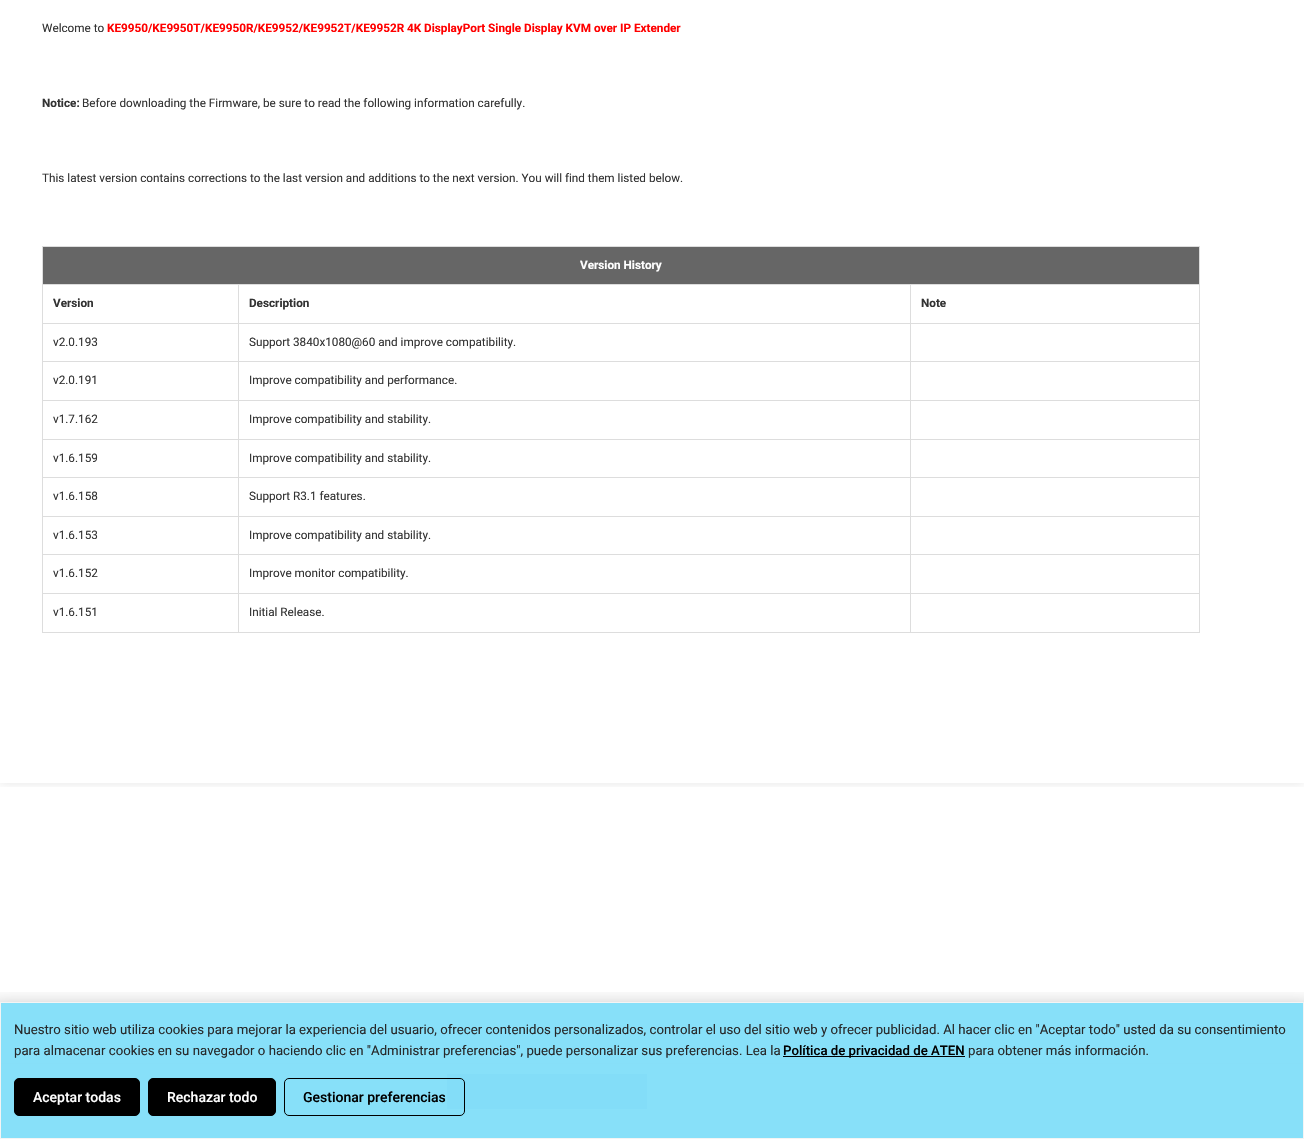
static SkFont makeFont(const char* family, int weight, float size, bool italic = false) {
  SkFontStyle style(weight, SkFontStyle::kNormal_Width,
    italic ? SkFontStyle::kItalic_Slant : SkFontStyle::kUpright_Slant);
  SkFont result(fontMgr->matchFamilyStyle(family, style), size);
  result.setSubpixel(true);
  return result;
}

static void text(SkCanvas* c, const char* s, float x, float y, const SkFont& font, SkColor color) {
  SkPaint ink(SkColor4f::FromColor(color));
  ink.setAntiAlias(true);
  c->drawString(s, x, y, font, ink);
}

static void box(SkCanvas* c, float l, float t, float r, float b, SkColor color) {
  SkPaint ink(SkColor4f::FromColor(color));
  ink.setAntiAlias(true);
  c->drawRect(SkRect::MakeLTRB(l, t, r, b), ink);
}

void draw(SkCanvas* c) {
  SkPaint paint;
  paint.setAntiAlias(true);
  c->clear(0xffffffff);
  box(c, 1, 1003, 1303, 1138, 0xff87e0f9);
  c->save();
  c->clipRect(SkRect::MakeLTRB(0, 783, 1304, 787));
  paint.setColor(0x1a000000);
  paint.setMaskFilter(SkMaskFilter::MakeBlur(kNormal_SkBlurStyle, 5));
  c->drawRect(SkRect::MakeLTRB(0, 0, 1304, 783), paint);
  paint.setMaskFilter(nullptr);
  c->restore();
  SkFont face1 = makeFont("Roboto", 400, 11.73f);
  text(c, "Welcome to", 42, 32, face1, 0xff333333);
  SkFont face2 = makeFont("Roboto", 700, 11.73f);
  text(c, "KE9950/KE9950T/KE9950R/KE9952/KE9952T/KE9952R", 107, 32, face2, 0xffff0000);
  text(c, "4K DisplayPort Single Display KVM over IP Extender", 407, 32, face2, 0xffff0000);
  text(c, "Notice:", 42, 107, face2, 0xff333333);
  text(c, "Before downloading the Firmware, be sure to read the following information carefully.", 82, 107, face1, 0xff333333);
  text(c, "This latest version contains corrections to the last version and additions to the next version. You will find them listed below.", 42, 182, face1, 0xff333333);
  box(c, 43, 247, 1199, 284, 0xff666666);
  box(c, 42, 246, 1200, 247, 0xffdddddd);
  box(c, 910, 284, 1200, 285, 0xffdddddd);
  box(c, 910, 323, 1200, 324, 0xffdddddd);
  box(c, 910, 361, 1200, 362, 0xffdddddd);
  box(c, 910, 400, 1200, 401, 0xffdddddd);
  box(c, 910, 439, 1200, 440, 0xffdddddd);
  box(c, 910, 477, 1200, 478, 0xffdddddd);
  box(c, 910, 516, 1200, 517, 0xffdddddd);
  box(c, 910, 554, 1200, 555, 0xffdddddd);
  box(c, 910, 593, 1200, 594, 0xffdddddd);
  box(c, 1199, 593, 1200, 633, 0xffdddddd);
  box(c, 1199, 554, 1200, 594, 0xffdddddd);
  box(c, 1199, 516, 1200, 555, 0xffdddddd);
  box(c, 1199, 477, 1200, 517, 0xffdddddd);
  box(c, 1199, 439, 1200, 478, 0xffdddddd);
  box(c, 1199, 400, 1200, 440, 0xffdddddd);
  box(c, 1199, 361, 1200, 401, 0xffdddddd);
  box(c, 1199, 323, 1200, 362, 0xffdddddd);
  box(c, 1199, 284, 1200, 324, 0xffdddddd);
  box(c, 1199, 246, 1200, 285, 0xffdddddd);
  box(c, 910, 632, 1200, 633, 0xffdddddd);
  box(c, 910, 593, 911, 633, 0xffdddddd);
  box(c, 238, 593, 911, 594, 0xffdddddd);
  box(c, 910, 554, 911, 594, 0xffdddddd);
  box(c, 238, 554, 911, 555, 0xffdddddd);
  box(c, 910, 516, 911, 555, 0xffdddddd);
  box(c, 238, 516, 911, 517, 0xffdddddd);
  box(c, 910, 477, 911, 517, 0xffdddddd);
  box(c, 238, 477, 911, 478, 0xffdddddd);
  box(c, 910, 439, 911, 478, 0xffdddddd);
  box(c, 238, 439, 911, 440, 0xffdddddd);
  box(c, 910, 400, 911, 440, 0xffdddddd);
  box(c, 238, 400, 911, 401, 0xffdddddd);
  box(c, 910, 361, 911, 401, 0xffdddddd);
  box(c, 238, 361, 911, 362, 0xffdddddd);
  box(c, 910, 323, 911, 362, 0xffdddddd);
  box(c, 238, 323, 911, 324, 0xffdddddd);
  box(c, 910, 284, 911, 324, 0xffdddddd);
  box(c, 238, 284, 911, 285, 0xffdddddd);
  box(c, 238, 632, 911, 633, 0xffdddddd);
  box(c, 238, 593, 239, 633, 0xffdddddd);
  box(c, 42, 593, 239, 594, 0xffdddddd);
  box(c, 238, 554, 239, 594, 0xffdddddd);
  box(c, 42, 554, 239, 555, 0xffdddddd);
  box(c, 238, 516, 239, 555, 0xffdddddd);
  box(c, 42, 516, 239, 517, 0xffdddddd);
  box(c, 238, 477, 239, 517, 0xffdddddd);
  box(c, 42, 477, 239, 478, 0xffdddddd);
  box(c, 238, 439, 239, 478, 0xffdddddd);
  box(c, 42, 439, 239, 440, 0xffdddddd);
  box(c, 238, 400, 239, 440, 0xffdddddd);
  box(c, 42, 400, 239, 401, 0xffdddddd);
  box(c, 238, 361, 239, 401, 0xffdddddd);
  box(c, 42, 361, 239, 362, 0xffdddddd);
  box(c, 238, 323, 239, 362, 0xffdddddd);
  box(c, 42, 323, 239, 324, 0xffdddddd);
  box(c, 238, 284, 239, 324, 0xffdddddd);
  box(c, 42, 284, 239, 285, 0xffdddddd);
  box(c, 42, 632, 239, 633, 0xffdddddd);
  box(c, 42, 593, 43, 633, 0xffdddddd);
  box(c, 42, 554, 43, 594, 0xffdddddd);
  box(c, 42, 516, 43, 555, 0xffdddddd);
  box(c, 42, 477, 43, 517, 0xffdddddd);
  box(c, 42, 439, 43, 478, 0xffdddddd);
  box(c, 42, 400, 43, 440, 0xffdddddd);
  box(c, 42, 361, 43, 401, 0xffdddddd);
  box(c, 42, 323, 43, 362, 0xffdddddd);
  box(c, 42, 284, 43, 324, 0xffdddddd);
  box(c, 42, 246, 43, 285, 0xffdddddd);
  text(c, "Version History", 580, 269, face2, 0xffffffff);
  text(c, "Version", 53, 307, face2, 0xff333333);
  text(c, "Description", 249, 307, face2, 0xff333333);
  text(c, "Note", 921, 307, face2, 0xff333333);
  text(c, "v2.0.193", 53, 346, face1, 0xff333333);
  text(c, "Support 3840x1080@60 and improve compatibility.", 249, 346, face1, 0xff333333);
  text(c, "v2.0.191", 53, 384, face1, 0xff333333);
  text(c, "Improve compatibility and performance.", 249, 384, face1, 0xff333333);
  text(c, "v1.7.162", 53, 423, face1, 0xff333333);
  text(c, "Improve compatibility and stability.", 249, 423, face1, 0xff333333);
  text(c, "v1.6.159", 53, 462, face1, 0xff333333);
  text(c, "Improve compatibility and stability.", 249, 462, face1, 0xff333333);
  text(c, "v1.6.158", 53, 500, face1, 0xff333333);
  text(c, "Support R3.1 features.", 249, 500, face1, 0xff333333);
  text(c, "v1.6.153", 53, 539, face1, 0xff333333);
  text(c, "Improve compatibility and stability.", 249, 539, face1, 0xff333333);
  text(c, "v1.6.152", 53, 577, face1, 0xff333333);
  text(c, "Improve monitor compatibility.", 249, 577, face1, 0xff333333);
  text(c, "v1.6.151", 53, 616, face1, 0xff333333);
  text(c, "Initial Release.", 249, 616, face1, 0xff333333);
  box(c, 0, 1063, 1304, 1064, 0xff87dff8);
  box(c, 447, 1074, 647, 1109, 0xff83ddf8);
  c->save();
  c->clipRect(SkRect::MakeLTRB(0, 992, 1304, 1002));
  paint.setColor(0x4d000000);
  paint.setMaskFilter(SkMaskFilter::MakeBlur(kNormal_SkBlurStyle, 10));
  c->drawRect(SkRect::MakeLTRB(-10, 1007, 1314, 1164), paint);
  paint.setMaskFilter(nullptr);
  c->restore();
  paint.setStyle(SkPaint::kStroke_Style);
  paint.setStrokeWidth(1);
  paint.setColor(0xfff4f4f4);
  c->drawRect(SkRect::MakeLTRB(0.5f, 1002.5f, 1303.5f, 1138.5f), paint);
  SkFont face3 = makeFont("Roboto", 400, 13.2f);
  text(c, "Nuestro sitio web utiliza cookies para mejorar la experiencia del usuario, ofrecer contenidos personalizados, controlar el uso del sitio web y ofrecer publicidad. Al hacer clic en \"Aceptar todo\" usted da su consentimiento", 14, 1034, face3, 0xff27292a);
  text(c, "para almacenar cookies en su navegador o haciendo clic en \"Administrar preferencias\", puede personalizar sus preferencias. Lea la", 14, 1055, face3, 0xff27292a);
  box(c, 783, 1056, 965, 1057, 0xff000000);
  SkFont face4 = makeFont("Roboto", 500, 13.2f);
  text(c, "Política de privacidad de ATEN", 783, 1055, face4, 0xff000000);
  text(c, "para obtener más información.", 968, 1055, face3, 0xff27292a);
  paint.setStyle(SkPaint::kFill_Style);
  paint.setColor(0xff000000);
  c->drawRoundRect(SkRect::MakeLTRB(14.5f, 1078.5f, 139.5f, 1115.5f), 4.5f, 4.5f, paint);
  paint.setStyle(SkPaint::kStroke_Style);
  c->drawRoundRect(SkRect::MakeLTRB(14.5f, 1078.5f, 139.5f, 1115.5f), 4.5f, 4.5f, paint);
  SkFont face5 = makeFont("Roboto", 500, 14);
  text(c, "Aceptar todas", 33, 1102, face5, 0xffffffff);
  paint.setStyle(SkPaint::kFill_Style);
  c->drawRoundRect(SkRect::MakeLTRB(148.5f, 1078.5f, 275.5f, 1115.5f), 4.5f, 4.5f, paint);
  paint.setStyle(SkPaint::kStroke_Style);
  c->drawRoundRect(SkRect::MakeLTRB(148.5f, 1078.5f, 275.5f, 1115.5f), 4.5f, 4.5f, paint);
  text(c, "Rechazar todo", 167, 1102, face5, 0xffffffff);
  c->drawRoundRect(SkRect::MakeLTRB(284.5f, 1078.5f, 464.5f, 1115.5f), 4.5f, 4.5f, paint);
  text(c, "Gestionar preferencias", 303, 1102, face5, 0xff000000);
}
